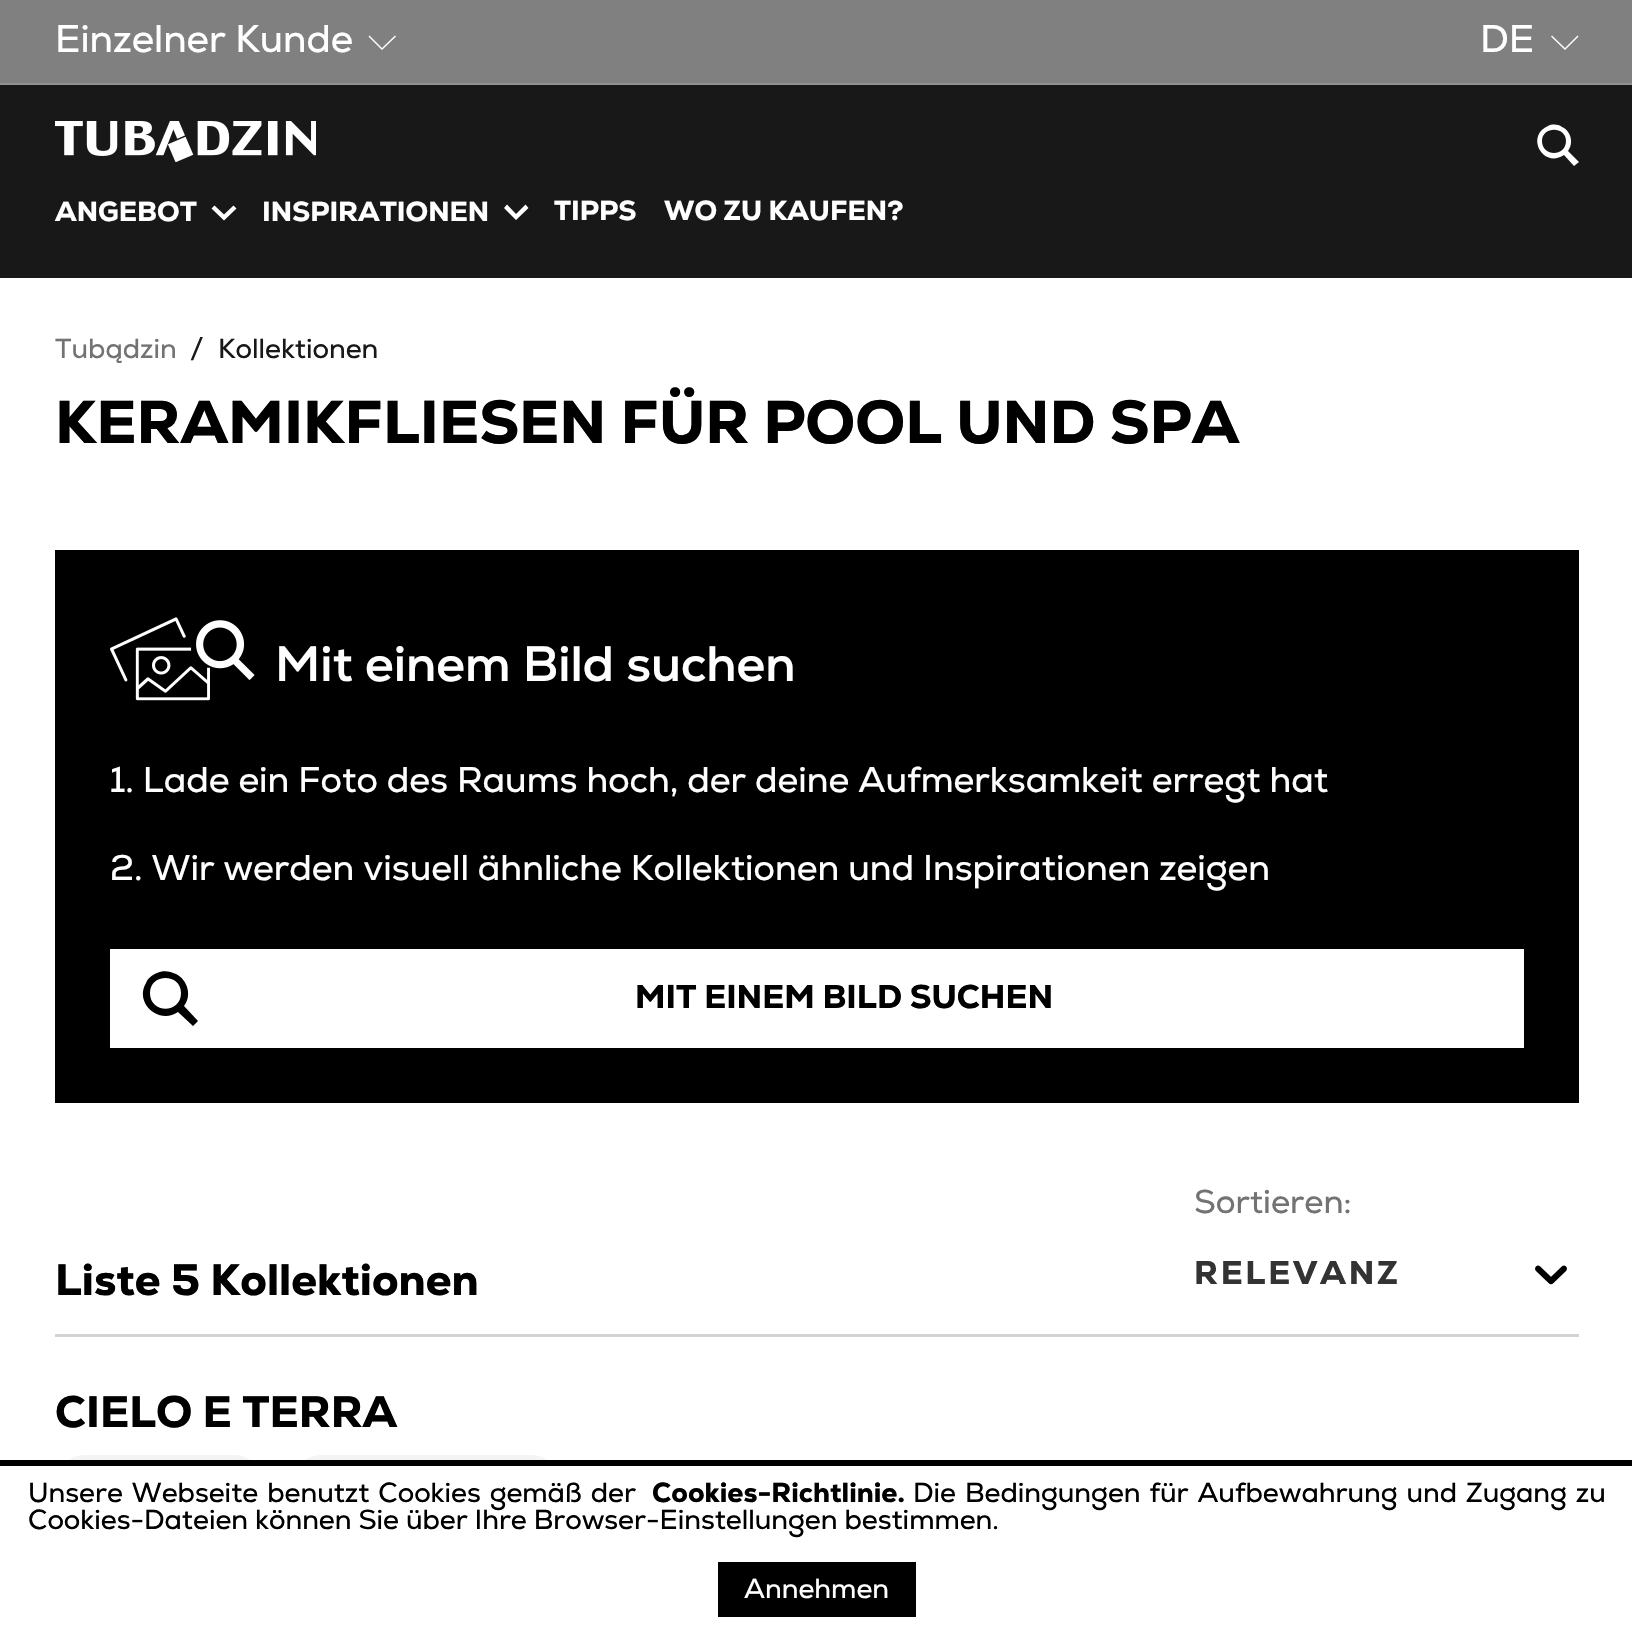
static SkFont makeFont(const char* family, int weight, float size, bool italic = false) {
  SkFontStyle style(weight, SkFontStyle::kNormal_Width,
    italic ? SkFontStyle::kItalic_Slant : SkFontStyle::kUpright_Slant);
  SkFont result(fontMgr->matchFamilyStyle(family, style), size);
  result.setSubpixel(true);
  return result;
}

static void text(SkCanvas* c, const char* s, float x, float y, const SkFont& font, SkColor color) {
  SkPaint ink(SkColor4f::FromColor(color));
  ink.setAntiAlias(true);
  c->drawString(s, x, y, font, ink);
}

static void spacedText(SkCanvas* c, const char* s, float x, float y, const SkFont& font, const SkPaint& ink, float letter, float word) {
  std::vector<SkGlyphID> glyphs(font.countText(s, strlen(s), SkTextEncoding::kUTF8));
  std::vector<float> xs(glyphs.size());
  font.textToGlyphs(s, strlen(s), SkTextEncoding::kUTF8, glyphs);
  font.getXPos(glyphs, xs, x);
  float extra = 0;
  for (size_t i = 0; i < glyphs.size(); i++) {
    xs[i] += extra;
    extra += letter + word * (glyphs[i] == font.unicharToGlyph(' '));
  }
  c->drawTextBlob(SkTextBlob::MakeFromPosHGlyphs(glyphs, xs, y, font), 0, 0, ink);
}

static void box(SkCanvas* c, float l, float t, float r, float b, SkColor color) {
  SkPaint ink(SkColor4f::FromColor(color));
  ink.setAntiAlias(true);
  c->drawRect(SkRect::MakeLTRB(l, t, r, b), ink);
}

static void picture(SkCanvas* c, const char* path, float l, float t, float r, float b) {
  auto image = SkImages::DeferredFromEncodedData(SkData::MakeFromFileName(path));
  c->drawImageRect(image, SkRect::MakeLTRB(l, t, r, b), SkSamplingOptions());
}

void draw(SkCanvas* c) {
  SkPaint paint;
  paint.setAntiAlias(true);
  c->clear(0xffffffff);
  box(c, 0, 0, 1632, 83, 0xff808080);
  box(c, 0, 83, 1632, 85, 0xff919191);
  SkFont face1 = makeFont("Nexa", 400, 38.5f);
  text(c, "Einzelner Kunde", 55, 52, face1, 0xffffffff);
  paint.setColor(0xffffffff);
  c->drawPath(SkPathBuilder().moveTo(369.5f, 35.5f).lineTo(368.5f, 36.5f).lineTo(382, 50).lineTo(396, 36.5f).lineTo(395, 35.5f).lineTo(382, 48).close().detach(), paint);
  text(c, "DE", 1480, 52, face1, 0xffffffff);
  c->drawPath(SkPathBuilder().moveTo(1552, 35.5f).lineTo(1551, 36.5f).lineTo(1565, 50).lineTo(1578.5f, 36.5f).lineTo(1577.5f, 35.5f).lineTo(1565, 48).close().detach(), paint);
  box(c, 0, 85, 1632, 278, 0xff181818);
  picture(c, "img_01.png", 55, 121, 316, 162);
  c->drawPath(SkPathBuilder().moveTo(1579, 162).lineTo(1568, 151).cubicTo(1574, 143, 1571, 131, 1562, 127).cubicTo(1558, 124, 1552, 124, 1548, 126).cubicTo(1525, 136, 1543, 169, 1564, 155).lineTo(1574, 166).close().moveTo(1542, 141).cubicTo(1542, 126, 1566, 126, 1566, 141).cubicTo(1566, 157, 1542, 157, 1542, 141).close().detach(), paint);
  SkFont face2 = makeFont("Nexa", 900, 27.5f);
  text(c, "ANGEBOT", 55, 221, face2, 0xffffffff);
  c->drawPath(SkPathBuilder().moveTo(236.5f, 208.5f).lineTo(233.5f, 205.5f).lineTo(224, 214.5f).lineTo(214.5f, 205.5f).lineTo(211.5f, 208.5f).lineTo(224, 220.5f).close().detach(), paint);
  text(c, "INSPIRATIONEN", 262, 221, face2, 0xffffffff);
  c->drawPath(SkPathBuilder().moveTo(528.5f, 208).lineTo(525.5f, 204.5f).lineTo(516, 214).lineTo(507, 204.5f).lineTo(504, 208).lineTo(516, 220).close().detach(), paint);
  text(c, "TIPPS", 554, 220, face2, 0xffffffff);
  text(c, "WO ZU KAUFEN?", 664, 220, face2, 0xffffffff);
  SkFont face3 = makeFont("Nexa", 400, 27.5f);
  text(c, "Tubądzin", 55, 358, face3, 0xff737373);
  text(c, "/", 190, 358, face3, 0xff181818);
  text(c, "Kollektionen", 218, 358, face3, 0xff181818);
  SkFont face4 = makeFont("Nexa", 900, 60.5f);
  text(c, "KERAMIKFLIESEN FÜR POOL UND SPA", 55, 443, face4, 0xff000000);
  box(c, 55, 550, 1579, 1103, 0xff000000);
  picture(c, "img_02.png", 110, 617, 255, 701);
  SkFont face5 = makeFont("Nexa", 700, 49.5f);
  text(c, "Mit einem Bild suchen", 275, 681, face5, 0xffffffff);
  SkFont face6 = makeFont("Nexa", 400, 35.75f);
  text(c, "1. Lade ein Foto des Raums hoch, der deine Aufmerksamkeit erregt hat", 110, 792, face6, 0xffffffff);
  text(c, "2. Wir werden visuell ähnliche Kollektionen und Inspirationen zeigen", 110, 880, face6, 0xffffffff);
  box(c, 110, 949, 1524, 1048, 0xffffffff);
  paint.setColor(0xff000000);
  c->drawPath(SkPathBuilder().moveTo(198, 1021).lineTo(184, 1006).cubicTo(192, 996, 188, 980, 176, 974).cubicTo(170, 971, 163, 970, 157, 973).cubicTo(152, 975, 148, 978, 146, 983).cubicTo(134, 1003, 159, 1025, 178, 1012).lineTo(193, 1026).close().moveTo(150, 993).cubicTo(150, 973, 181, 973, 181, 993).cubicTo(181, 1014, 150, 1014, 150, 993).close().detach(), paint);
  SkFont face7 = makeFont("Nexa", 900, 33);
  text(c, "MIT EINEM BILD SUCHEN", 635, 1008, face7, 0xff000000);
  box(c, 55, 1334, 1579, 1337, 0xffd3d3d3);
  SkFont face8 = makeFont("Nexa", 900, 44);
  text(c, "Liste 5 Kollektionen", 55, 1295, face8, 0xff000000);
  SkFont face9 = makeFont("Nexa", 400, 33);
  text(c, "Sortieren:", 1194, 1213, face9, 0xff737373);
  paint.setColor(0xff333333);
  spacedText(c, "RELEVANZ", 1194, 1284, face7, paint, 2.75f, 0);
  picture(c, "img_03.png", 1535, 1265, 1567, 1285);
  text(c, "CIELO E TERRA", 55, 1427, face8, 0xff000000);
  paint.setColor(0xfff4f4f4);
  c->drawRoundRect(SkRect::MakeLTRB(56.5f, 1456.5f, 262.5f, 1513.5f), 28.5f, 28.5f, paint);
  paint.setStyle(SkPaint::kStroke_Style);
  paint.setStrokeWidth(3);
  c->drawRoundRect(SkRect::MakeLTRB(56.5f, 1456.5f, 262.5f, 1513.5f), 28.5f, 28.5f, paint);
  paint.setStyle(SkPaint::kFill_Style);
  c->drawRoundRect(SkRect::MakeLTRB(293.5f, 1456.5f, 559.5f, 1513.5f), 28.5f, 28.5f, paint);
  paint.setStyle(SkPaint::kStroke_Style);
  c->drawRoundRect(SkRect::MakeLTRB(293.5f, 1456.5f, 559.5f, 1513.5f), 28.5f, 28.5f, paint);
  box(c, 55, 1466, 561, 1515, 0xffffffff);
  box(c, 0, 1460, 1632, 1466, 0xff000000);
  paint.setStyle(SkPaint::kFill_Style);
  paint.setColor(0xff000000);
  spacedText(c, "Unsere Webseite benutzt Cookies gemäß der", 28, 1502, face3, paint, 0, 2);
  text(c, "Cookies-Richtlinie.", 652, 1502, face2, 0xff000000);
  spacedText(c, "Die Bedingungen für Aufbewahrung und Zugang zu", 913, 1502, face3, paint, 0, 2);
  text(c, "Cookies-Dateien können Sie über Ihre Browser-Einstellungen bestimmen.", 28, 1529, face3, 0xff000000);
  box(c, 718, 1562, 916, 1617, 0xff000000);
  text(c, "Annehmen", 744, 1598, face3, 0xffffffff);
}
